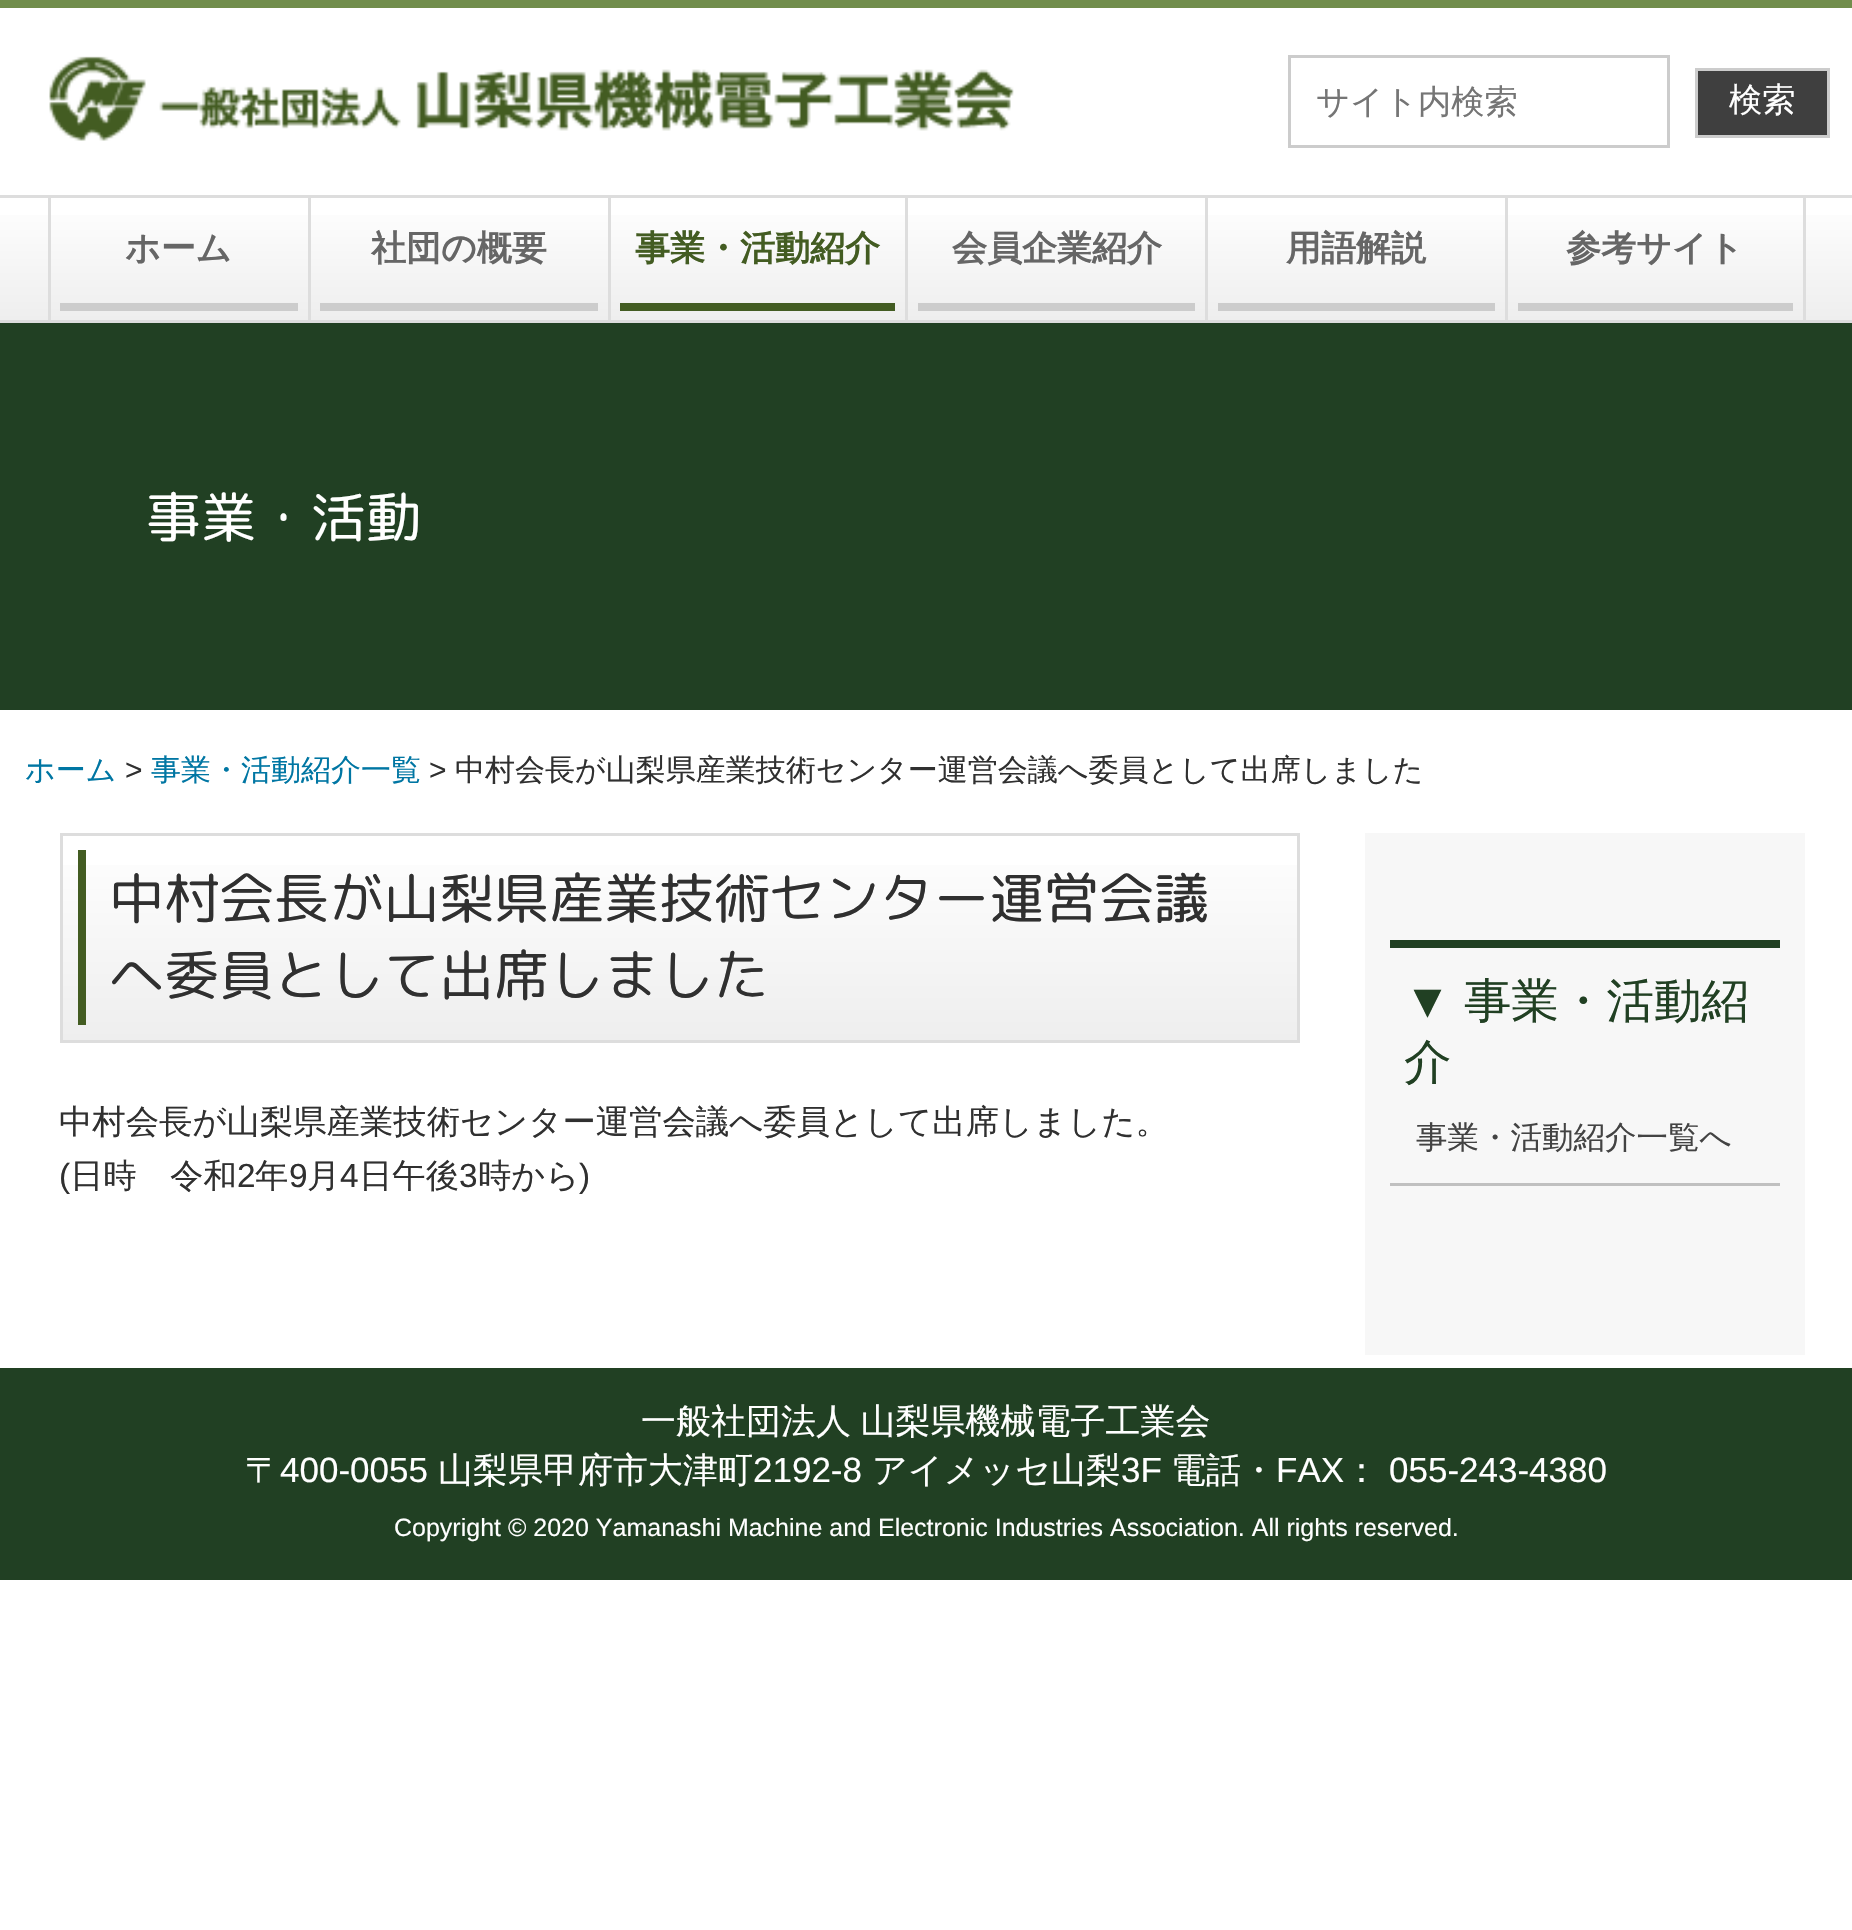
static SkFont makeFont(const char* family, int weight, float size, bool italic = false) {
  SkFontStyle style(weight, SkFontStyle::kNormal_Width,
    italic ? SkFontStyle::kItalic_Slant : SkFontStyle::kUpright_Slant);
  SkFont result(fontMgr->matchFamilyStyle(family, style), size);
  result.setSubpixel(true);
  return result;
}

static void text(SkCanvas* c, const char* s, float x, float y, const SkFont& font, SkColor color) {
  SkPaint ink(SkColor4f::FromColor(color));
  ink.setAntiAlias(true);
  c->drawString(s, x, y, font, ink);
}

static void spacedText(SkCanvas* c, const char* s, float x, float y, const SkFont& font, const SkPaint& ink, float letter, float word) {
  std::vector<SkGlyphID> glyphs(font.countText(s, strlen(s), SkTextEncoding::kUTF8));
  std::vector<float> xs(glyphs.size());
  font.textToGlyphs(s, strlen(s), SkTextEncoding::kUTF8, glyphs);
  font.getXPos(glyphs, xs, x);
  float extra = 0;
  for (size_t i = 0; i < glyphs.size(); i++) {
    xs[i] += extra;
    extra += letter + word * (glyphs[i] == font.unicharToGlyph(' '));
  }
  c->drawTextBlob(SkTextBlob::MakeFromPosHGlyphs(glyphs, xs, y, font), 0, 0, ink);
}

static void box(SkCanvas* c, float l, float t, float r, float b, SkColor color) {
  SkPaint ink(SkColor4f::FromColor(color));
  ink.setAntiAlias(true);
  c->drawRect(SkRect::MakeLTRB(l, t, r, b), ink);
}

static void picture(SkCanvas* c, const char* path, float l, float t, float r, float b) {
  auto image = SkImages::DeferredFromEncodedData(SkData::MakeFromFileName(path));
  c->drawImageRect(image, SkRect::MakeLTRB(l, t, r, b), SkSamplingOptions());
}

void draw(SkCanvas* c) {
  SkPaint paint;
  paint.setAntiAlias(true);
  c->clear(0xffffffff);
  box(c, 0, 0, 1852, 8, 0xff718d4c);
  picture(c, "img_01.png", 49, 56, 1014, 141);
  paint.setStyle(SkPaint::kStroke_Style);
  paint.setStrokeWidth(3);
  paint.setColor(0xffcccccc);
  c->drawRect(SkRect::MakeLTRB(1289.5f, 56.5f, 1668.5f, 146.5f), paint);
  SkFont face1 = makeFont("WenQuanYi Zen Hei", 500, 33.25f);
  text(c, "サイト内検索", 1316, 113, face1, 0xff757575);
  paint.setStyle(SkPaint::kFill_Style);
  paint.setColor(0xff3f3f3f);
  c->drawRect(SkRect::MakeLTRB(1696.5f, 69.5f, 1828.5f, 136.5f), paint);
  paint.setStyle(SkPaint::kStroke_Style);
  paint.setColor(0xffcccccc);
  c->drawRect(SkRect::MakeLTRB(1696.5f, 69.5f, 1828.5f, 136.5f), paint);
  text(c, "検索", 1729, 111, face1, 0xffffffff);
  paint.setStyle(SkPaint::kFill_Style);
  {
    const SkColor colors[] = {0xffffffff, 0xffeeeeee};
    const float stops[] = {0, 1};
    const SkPoint ends[] = {{926, 197}, {926, 320}};
    paint.setShader(SkGradientShader::MakeLinear(ends, colors, stops, 2, SkTileMode::kClamp));
    paint.setAlpha(255);
  }
  c->drawRect(SkRect::MakeLTRB(0, 215, 1852, 320), paint);
  box(c, 0, 195, 1852, 198, 0xffdddddd);
  box(c, 0, 320, 1852, 323, 0xffdddddd);
  box(c, 308, 198, 311, 320, 0xffdddddd);
  box(c, 48, 198, 51, 320, 0xffdddddd);
  box(c, 60, 303, 298, 311, 0xffcccccc);
  SkFont face2 = makeFont("WenQuanYi Zen Hei", 700, 35);
  text(c, "ホーム", 125, 260, face2, 0xff666666);
  box(c, 608, 198, 611, 320, 0xffdddddd);
  box(c, 320, 303, 598, 311, 0xffcccccc);
  text(c, "社団の概要", 371, 260, face2, 0xff666666);
  box(c, 905, 198, 908, 320, 0xffdddddd);
  box(c, 620, 303, 895, 311, 0xff435c22);
  text(c, "事業・活動紹介", 635, 260, face2, 0xff435c22);
  box(c, 1205, 198, 1208, 320, 0xffdddddd);
  box(c, 918, 303, 1195, 311, 0xffcccccc);
  text(c, "会員企業紹介", 952, 260, face2, 0xff666666);
  box(c, 1505, 198, 1508, 320, 0xffdddddd);
  box(c, 1218, 303, 1495, 311, 0xffcccccc);
  text(c, "用語解説", 1286, 260, face2, 0xff666666);
  box(c, 1803, 198, 1806, 320, 0xffdddddd);
  box(c, 1518, 303, 1793, 311, 0xffcccccc);
  text(c, "参考サイト", 1566, 260, face2, 0xff666666);
  box(c, 0, 323, 1852, 710, 0xff214023);
  SkFont face3 = makeFont("Rounded Mplus 1c", 400, 55);
  text(c, "事業・活動", 146, 537, face3, 0xffffffff);
  SkFont face4 = makeFont("WenQuanYi Zen Hei", 500, 30);
  text(c, "ホーム", 25, 780, face4, 0xff0076a3);
  SkFont face5 = makeFont("Liberation Sans", 400, 30);
  text(c, ">", 125, 780, face5, 0xff303030);
  text(c, "事業・活動紹介一覧", 151, 780, face4, 0xff0076a3);
  text(c, ">", 429, 780, face5, 0xff303030);
  text(c, "中村会長が山梨県産業技術センター運営会議へ委員として出席しました", 455, 780, face4, 0xff303030);
  {
    const SkColor colors[] = {0xffffffff, 0xffeeeeee};
    const float stops[] = {0, 1};
    const SkPoint ends[] = {{680, 835}, {680, 1040}};
    paint.setShader(SkGradientShader::MakeLinear(ends, colors, stops, 2, SkTileMode::kClamp));
    paint.setAlpha(255);
  }
  c->drawRect(SkRect::MakeLTRB(63, 865, 1297, 1040), paint);
  paint.setStyle(SkPaint::kStroke_Style);
  paint.setShader(nullptr);
  paint.setColor(0xffdddddd);
  c->drawRect(SkRect::MakeLTRB(61.5f, 834.5f, 1298.5f, 1041.5f), paint);
  box(c, 78, 850, 86, 1025, 0xff435c22);
  text(c, "中村会長が山梨県産業技術センター運営会議", 109, 918, face3, 0xff303030);
  text(c, "へ委員として出席しました", 109, 995, face3, 0xff303030);
  SkFont face6 = makeFont("WenQuanYi Zen Hei", 500, 33.35f);
  text(c, "中村会長が山梨県産業技術センター運営会議へ委員として出席しました。", 59, 1133, face6, 0xff303030);
  SkFont face7 = makeFont("Liberation Sans", 400, 33.35f);
  text(c, "(", 59, 1187, face7, 0xff303030);
  text(c, "日時　令和", 70, 1187, face6, 0xff303030);
  text(c, "2", 237, 1187, face7, 0xff303030);
  text(c, "年", 255, 1187, face6, 0xff303030);
  text(c, "9", 289, 1187, face7, 0xff303030);
  text(c, "月", 307, 1187, face6, 0xff303030);
  text(c, "4", 340, 1187, face7, 0xff303030);
  text(c, "日午後", 359, 1187, face6, 0xff303030);
  text(c, "3", 459, 1187, face7, 0xff303030);
  text(c, "時から", 478, 1187, face6, 0xff303030);
  text(c, ")", 579, 1187, face7, 0xff303030);
  box(c, 1365, 833, 1805, 1355, 0xfff7f7f7);
  box(c, 1390, 940, 1780, 948, 0xff214023);
  SkFont face8 = makeFont("Liberation Sans", 400, 47.5f);
  text(c, "▼", 1404, 1017, face8, 0xff214023);
  SkFont face9 = makeFont("WenQuanYi Zen Hei", 500, 47.5f);
  text(c, "事業・活動紹", 1464, 1017, face9, 0xff214023);
  text(c, "介", 1404, 1078, face9, 0xff214023);
  box(c, 1390, 1183, 1780, 1186, 0xffc0c0c0);
  SkFont face10 = makeFont("WenQuanYi Zen Hei", 500, 31.5f);
  text(c, "事業・活動紹介一覧へ", 1416, 1148, face10, 0xff434343);
  box(c, 0, 1368, 1852, 1580, 0xff214023);
  SkFont face11 = makeFont("WenQuanYi Zen Hei", 500, 35);
  paint.setStyle(SkPaint::kFill_Style);
  paint.setColor(0xffffffff);
  spacedText(c, "一般社団法人 山梨県機械電子工業会", 641, 1433, face11, paint, 0, -1);
  text(c, "〒", 245, 1482, face11, 0xffffffff);
  SkFont face12 = makeFont("Liberation Sans", 400, 35);
  text(c, "400-0055", 280, 1482, face12, 0xffffffff);
  text(c, "山梨県甲府市大津町", 438, 1482, face11, 0xffffffff);
  text(c, "2192-8", 753, 1482, face12, 0xffffffff);
  text(c, "アイメッセ山梨", 872, 1482, face11, 0xffffffff);
  text(c, "3F", 1121, 1482, face12, 0xffffffff);
  text(c, "電話・", 1171, 1482, face11, 0xffffffff);
  text(c, "FAX", 1276, 1482, face12, 0xffffffff);
  text(c, "：", 1344, 1482, face11, 0xffffffff);
  text(c, "055-243-4380", 1389, 1482, face12, 0xffffffff);
  SkFont face13 = makeFont("Liberation Sans", 400, 25);
  text(c, "Copyright © 2020 Yamanashi Machine and Electronic Industries Association. All rights reserved.", 394, 1536, face13, 0xffffffff);
}
